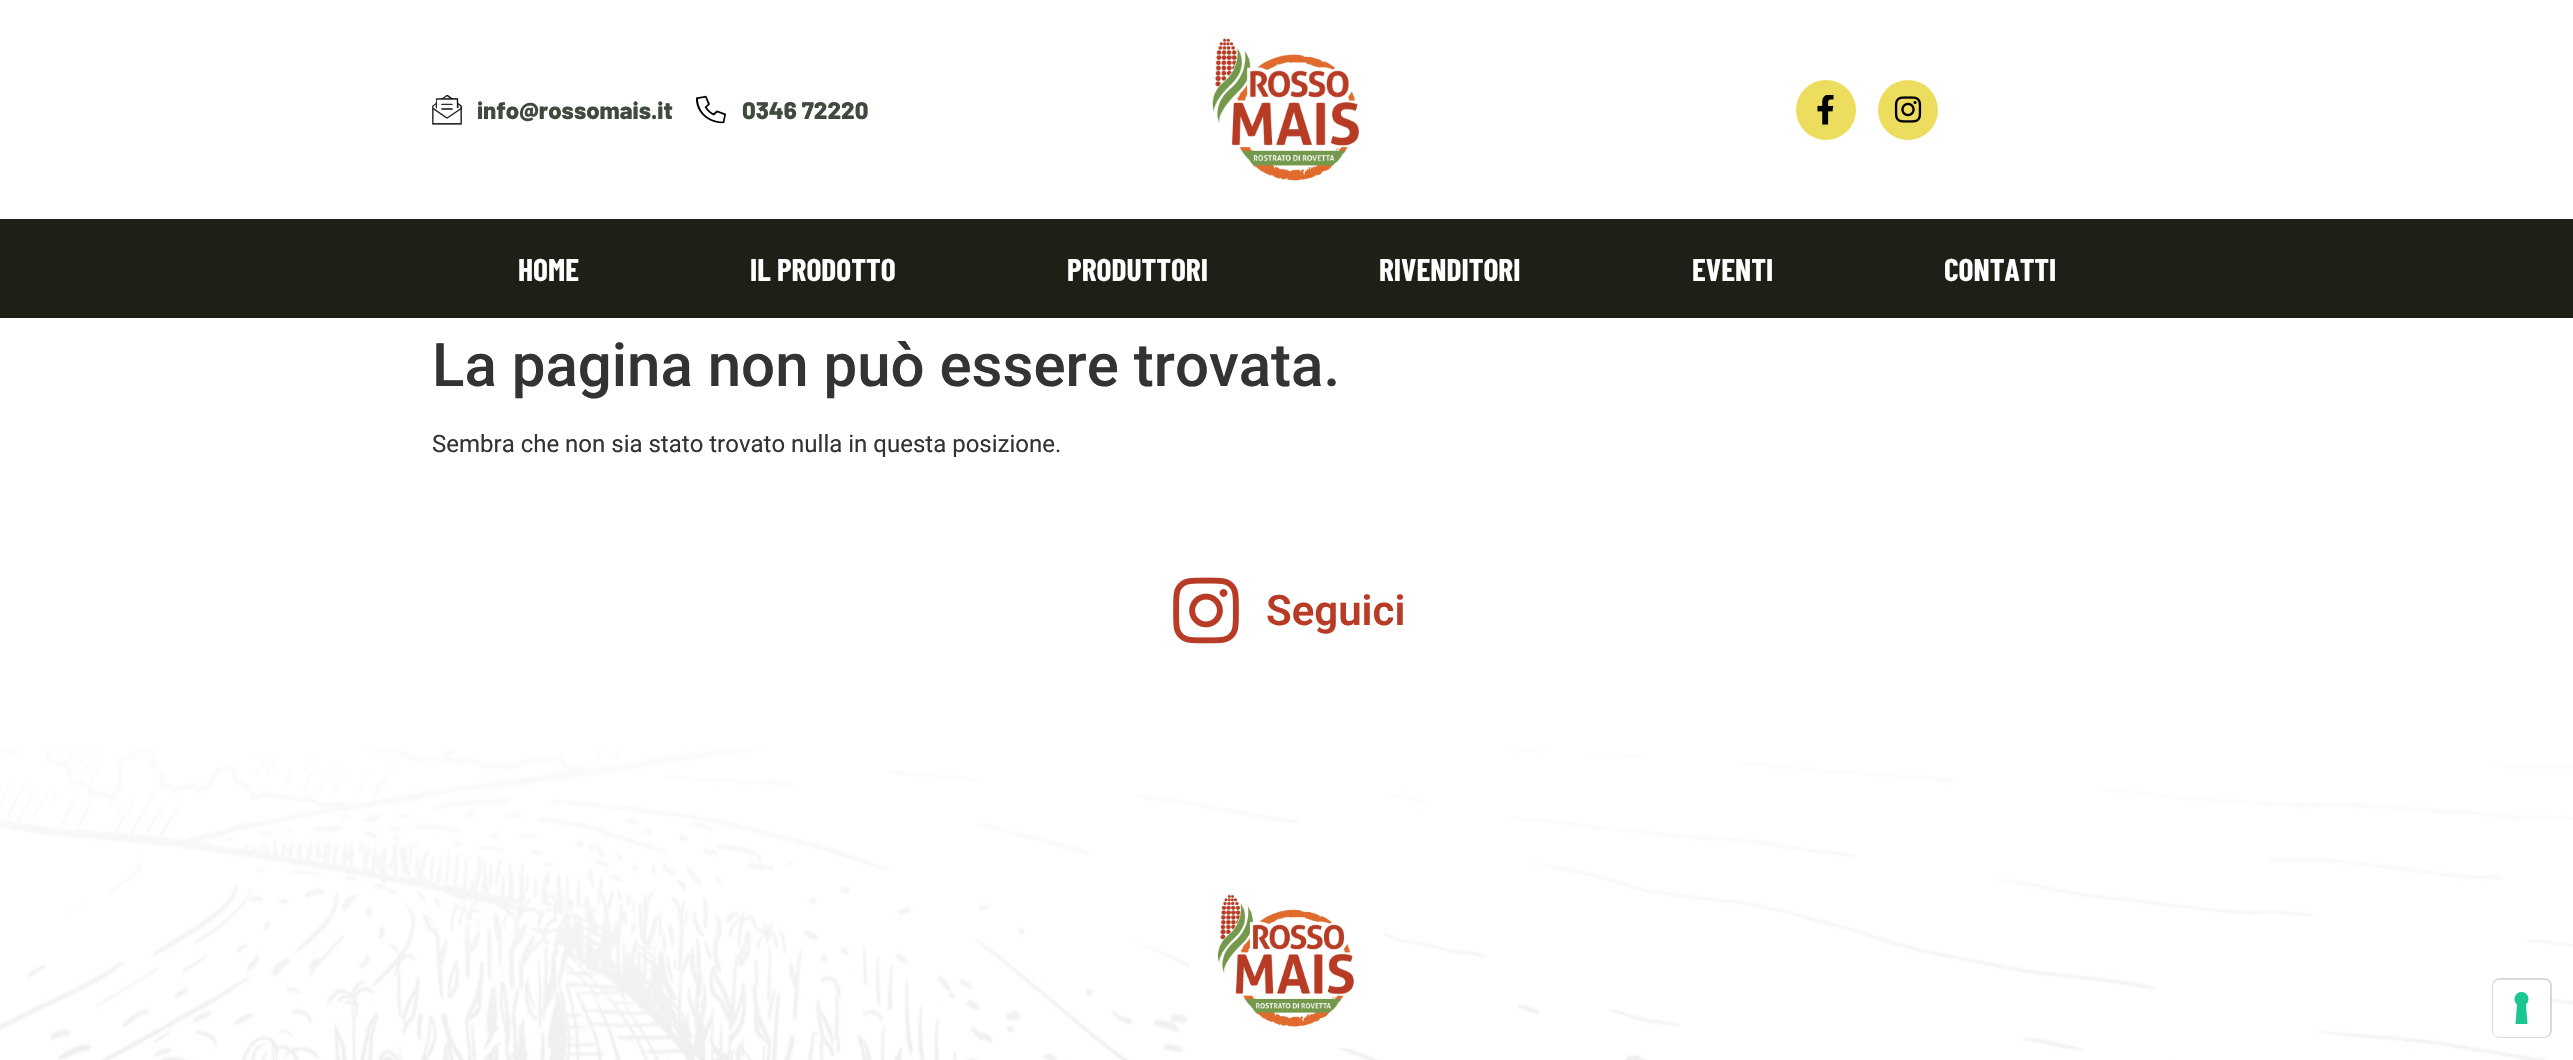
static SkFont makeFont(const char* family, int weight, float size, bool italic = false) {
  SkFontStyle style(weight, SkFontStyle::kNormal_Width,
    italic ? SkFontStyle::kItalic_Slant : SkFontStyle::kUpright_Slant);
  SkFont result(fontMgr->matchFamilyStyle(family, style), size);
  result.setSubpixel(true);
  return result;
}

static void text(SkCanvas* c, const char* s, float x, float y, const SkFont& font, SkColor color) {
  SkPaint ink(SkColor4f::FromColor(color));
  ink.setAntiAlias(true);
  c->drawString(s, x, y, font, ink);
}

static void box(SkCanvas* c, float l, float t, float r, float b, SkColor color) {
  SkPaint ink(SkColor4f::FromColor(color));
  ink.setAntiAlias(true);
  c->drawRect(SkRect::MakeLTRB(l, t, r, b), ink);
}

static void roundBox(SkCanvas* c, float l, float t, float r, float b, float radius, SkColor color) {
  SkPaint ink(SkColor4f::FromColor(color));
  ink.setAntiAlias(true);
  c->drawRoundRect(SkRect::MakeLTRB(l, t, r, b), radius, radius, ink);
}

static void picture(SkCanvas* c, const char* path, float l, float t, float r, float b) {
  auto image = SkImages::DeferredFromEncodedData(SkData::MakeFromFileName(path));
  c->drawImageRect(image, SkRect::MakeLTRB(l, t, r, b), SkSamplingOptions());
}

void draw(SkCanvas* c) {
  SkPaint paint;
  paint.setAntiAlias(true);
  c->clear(0xffffffff);
  picture(c, "img_01.png", 432, 95, 462, 125);
  SkFont face1 = makeFont("Barlow", 800, 24);
  text(c, "info@rossomais.it", 477, 119, face1, 0xff404a3d);
  picture(c, "img_02.png", 696, 95, 726, 124);
  text(c, "0346 72220", 742, 119, face1, 0xff404a3d);
  picture(c, "img_03.png", 1212, 38, 1359, 181);
  paint.setColor(0xffeddd5e);
  c->drawCircle(1826, 110, 30, paint);
  picture(c, "img_04.png", 1817, 95, 1834, 125);
  c->drawCircle(1908, 110, 30, paint);
  picture(c, "img_05.png", 1894, 96, 1922, 123);
  box(c, 0, 219, 2573, 318, 0xff1f1e17);
  SkFont face2 = makeFont("Barlow Condensed", 700, 31.5f);
  text(c, "HOME", 518, 281, face2, 0xffffffff);
  text(c, "IL PRODOTTO", 750, 281, face2, 0xffffffff);
  text(c, "PRODUTTORI", 1067, 281, face2, 0xffffffff);
  text(c, "RIVENDITORI", 1379, 281, face2, 0xffffffff);
  text(c, "EVENTI", 1692, 281, face2, 0xffffffff);
  text(c, "CONTATTI", 1944, 281, face2, 0xffffffff);
  SkFont face3 = makeFont("Roboto", 500, 60);
  text(c, "La pagina non può essere trovata.", 432, 386, face3, 0xff333333);
  SkFont face4 = makeFont("Roboto", 400, 24);
  text(c, "Sembra che non sia stato trovato nulla in questa posizione.", 432, 452, face4, 0xff333333);
  picture(c, "img_06.png", 1173, 577, 1239, 644);
  SkFont face5 = makeFont("Roboto", 600, 42);
  text(c, "Seguici", 1266, 625, face5, 0xffb83b25);
  picture(c, "img_07.png", 0, 749, 2573, 1060);
  picture(c, "img_08.png", 1189, 894, 1384, 1049);
  paint.setStyle(SkPaint::kStroke_Style);
  paint.setStrokeWidth(2);
  paint.setColor(0x26000000);
  c->drawRoundRect(SkRect::MakeLTRB(2493, 979, 2551, 1037), 7, 7, paint);
  roundBox(c, 2493, 980, 2550, 1037, 6, 0xffffffff);
  paint.setStyle(SkPaint::kFill_Style);
  paint.setColor(0xff1cc691);
  c->drawPath(SkPathBuilder(SkPathFillType::kEvenOdd).moveTo(2521.5f, 992).cubicTo(2528, 992, 2531, 1000, 2526, 1004.5f).lineTo(2527.5f, 1024).lineTo(2515.5f, 1024).lineTo(2517, 1004.5f).cubicTo(2512, 1000, 2515, 992, 2521.5f, 992).close().detach(), paint);
}
